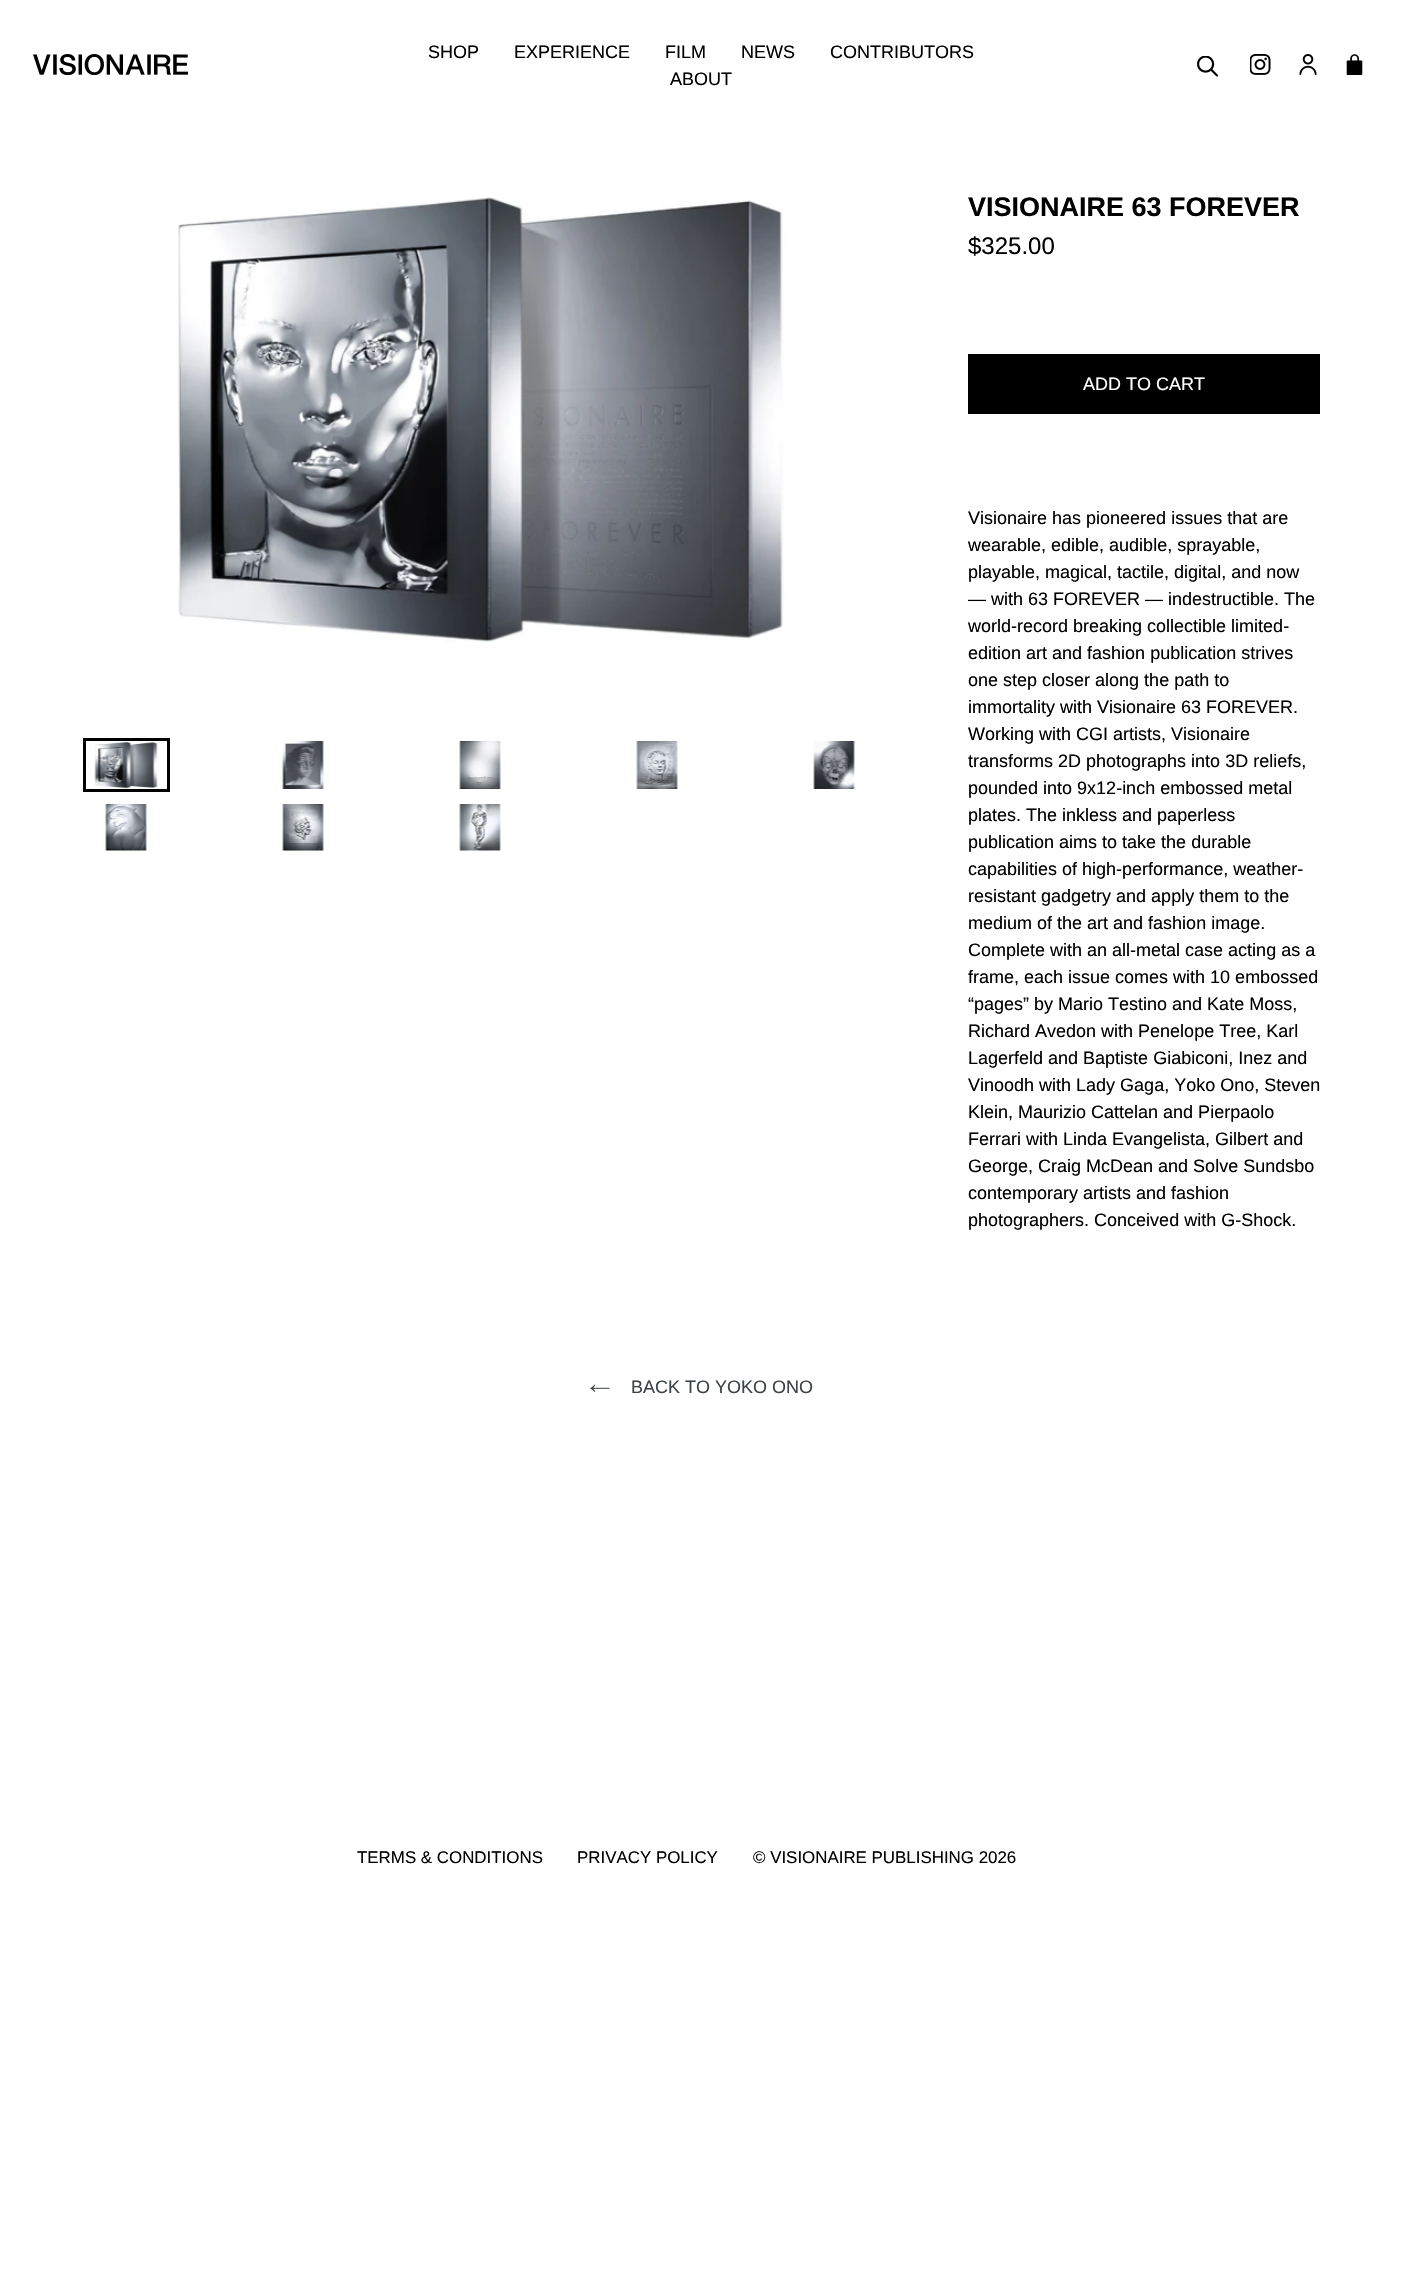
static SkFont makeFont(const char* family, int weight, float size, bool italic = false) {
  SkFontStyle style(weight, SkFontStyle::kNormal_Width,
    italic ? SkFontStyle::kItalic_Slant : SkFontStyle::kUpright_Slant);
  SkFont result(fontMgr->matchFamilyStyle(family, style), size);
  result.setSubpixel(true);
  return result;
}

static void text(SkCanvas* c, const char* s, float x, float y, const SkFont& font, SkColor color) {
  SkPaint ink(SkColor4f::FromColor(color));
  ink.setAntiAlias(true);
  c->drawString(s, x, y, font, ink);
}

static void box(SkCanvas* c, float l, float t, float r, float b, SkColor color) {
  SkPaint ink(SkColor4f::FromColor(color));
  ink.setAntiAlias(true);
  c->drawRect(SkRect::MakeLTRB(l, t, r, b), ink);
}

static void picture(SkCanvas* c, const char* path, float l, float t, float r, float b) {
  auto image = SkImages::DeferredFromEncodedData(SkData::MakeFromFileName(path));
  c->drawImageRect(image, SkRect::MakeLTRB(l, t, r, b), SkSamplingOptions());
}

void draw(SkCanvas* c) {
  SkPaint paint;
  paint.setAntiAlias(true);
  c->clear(0xffffffff);
  picture(c, "img_01.png", 33, 54, 188, 75);
  SkFont face1 = makeFont("Liberation Sans", 400, 18);
  text(c, "SHOP", 428, 58, face1, 0xff000000);
  text(c, "EXPERIENCE", 514, 58, face1, 0xff000000);
  text(c, "FILM", 665, 58, face1, 0xff000000);
  text(c, "NEWS", 741, 58, face1, 0xff000000);
  text(c, "CONTRIBUTORS", 830, 58, face1, 0xff000000);
  text(c, "ABOUT", 670, 85, face1, 0xff000000);
  picture(c, "img_02.png", 1197, 56, 1218, 77);
  picture(c, "img_03.png", 1250, 54, 1271, 75);
  picture(c, "img_04.png", 1299, 54, 1317, 75);
  picture(c, "img_05.png", 1346, 54, 1363, 75);
  picture(c, "img_06.png", 178, 197, 785, 643);
  paint.setStyle(SkPaint::kStroke_Style);
  paint.setStrokeWidth(3);
  paint.setColor(0xff000000);
  c->drawRect(SkRect::MakeLTRB(84.5f, 739.5f, 168.5f, 790.5f), paint);
  picture(c, "img_07.png", 94, 741, 158, 789);
  picture(c, "img_08.png", 282, 741, 324, 789);
  picture(c, "img_09.png", 459, 741, 501, 789);
  picture(c, "img_10.png", 636, 741, 678, 789);
  picture(c, "img_11.png", 813, 741, 855, 789);
  picture(c, "img_12.png", 105, 804, 147, 851);
  picture(c, "img_13.png", 282, 804, 324, 851);
  picture(c, "img_14.png", 459, 804, 501, 851);
  SkFont face2 = makeFont("Liberation Sans", 700, 27);
  text(c, "VISIONAIRE 63 FOREVER", 968, 216, face2, 0xff000000);
  SkFont face3 = makeFont("Liberation Sans", 400, 24);
  text(c, "$325.00", 968, 254, face3, 0xff000000);
  box(c, 968, 354, 1320, 414, 0xff000000);
  text(c, "ADD TO CART", 1083, 390, face1, 0xffffffff);
  text(c, "Visionaire has pioneered issues that are", 968, 524, face1, 0xff000000);
  text(c, "wearable, edible, audible, sprayable,", 968, 551, face1, 0xff000000);
  text(c, "playable, magical, tactile, digital, and now", 968, 578, face1, 0xff000000);
  text(c, "— with 63 FOREVER — indestructible. The", 968, 605, face1, 0xff000000);
  text(c, "world-record breaking collectible limited-", 968, 632, face1, 0xff000000);
  text(c, "edition art and fashion publication strives", 968, 659, face1, 0xff000000);
  text(c, "one step closer along the path to", 968, 686, face1, 0xff000000);
  text(c, "immortality with Visionaire 63 FOREVER.", 968, 713, face1, 0xff000000);
  text(c, "Working with CGI artists, Visionaire", 968, 740, face1, 0xff000000);
  text(c, "transforms 2D photographs into 3D reliefs,", 968, 767, face1, 0xff000000);
  text(c, "pounded into 9x12-inch embossed metal", 968, 794, face1, 0xff000000);
  text(c, "plates. The inkless and paperless", 968, 821, face1, 0xff000000);
  text(c, "publication aims to take the durable", 968, 848, face1, 0xff000000);
  text(c, "capabilities of high-performance, weather-", 968, 875, face1, 0xff000000);
  text(c, "resistant gadgetry and apply them to the", 968, 902, face1, 0xff000000);
  text(c, "medium of the art and fashion image.", 968, 929, face1, 0xff000000);
  text(c, "Complete with an all-metal case acting as a", 968, 956, face1, 0xff000000);
  text(c, "frame, each issue comes with 10 embossed", 968, 983, face1, 0xff000000);
  text(c, "“pages” by Mario Testino and Kate Moss,", 968, 1010, face1, 0xff000000);
  text(c, "Richard Avedon with Penelope Tree, Karl", 968, 1037, face1, 0xff000000);
  text(c, "Lagerfeld and Baptiste Giabiconi, Inez and", 968, 1064, face1, 0xff000000);
  text(c, "Vinoodh with Lady Gaga, Yoko Ono, Steven", 968, 1091, face1, 0xff000000);
  text(c, "Klein, Maurizio Cattelan and Pierpaolo", 968, 1118, face1, 0xff000000);
  text(c, "Ferrari with Linda Evangelista, Gilbert and", 968, 1145, face1, 0xff000000);
  text(c, "George, Craig McDean and Solve Sundsbo", 968, 1172, face1, 0xff000000);
  text(c, "contemporary artists and fashion", 968, 1199, face1, 0xff000000);
  text(c, "photographers. Conceived with G-Shock.", 968, 1226, face1, 0xff000000);
  picture(c, "img_15.png", 590, 1384, 610, 1392);
  text(c, "BACK TO YOKO ONO", 631, 1393, face1, 0xff3d4246);
  SkFont face4 = makeFont("Liberation Sans", 400, 16.9f);
  text(c, "TERMS & CONDITIONS", 357, 1863, face4, 0xff000000);
  text(c, "PRIVACY POLICY", 577, 1863, face4, 0xff000000);
  text(c, "© VISIONAIRE PUBLISHING 2026", 753, 1863, face4, 0xff000000);
}
